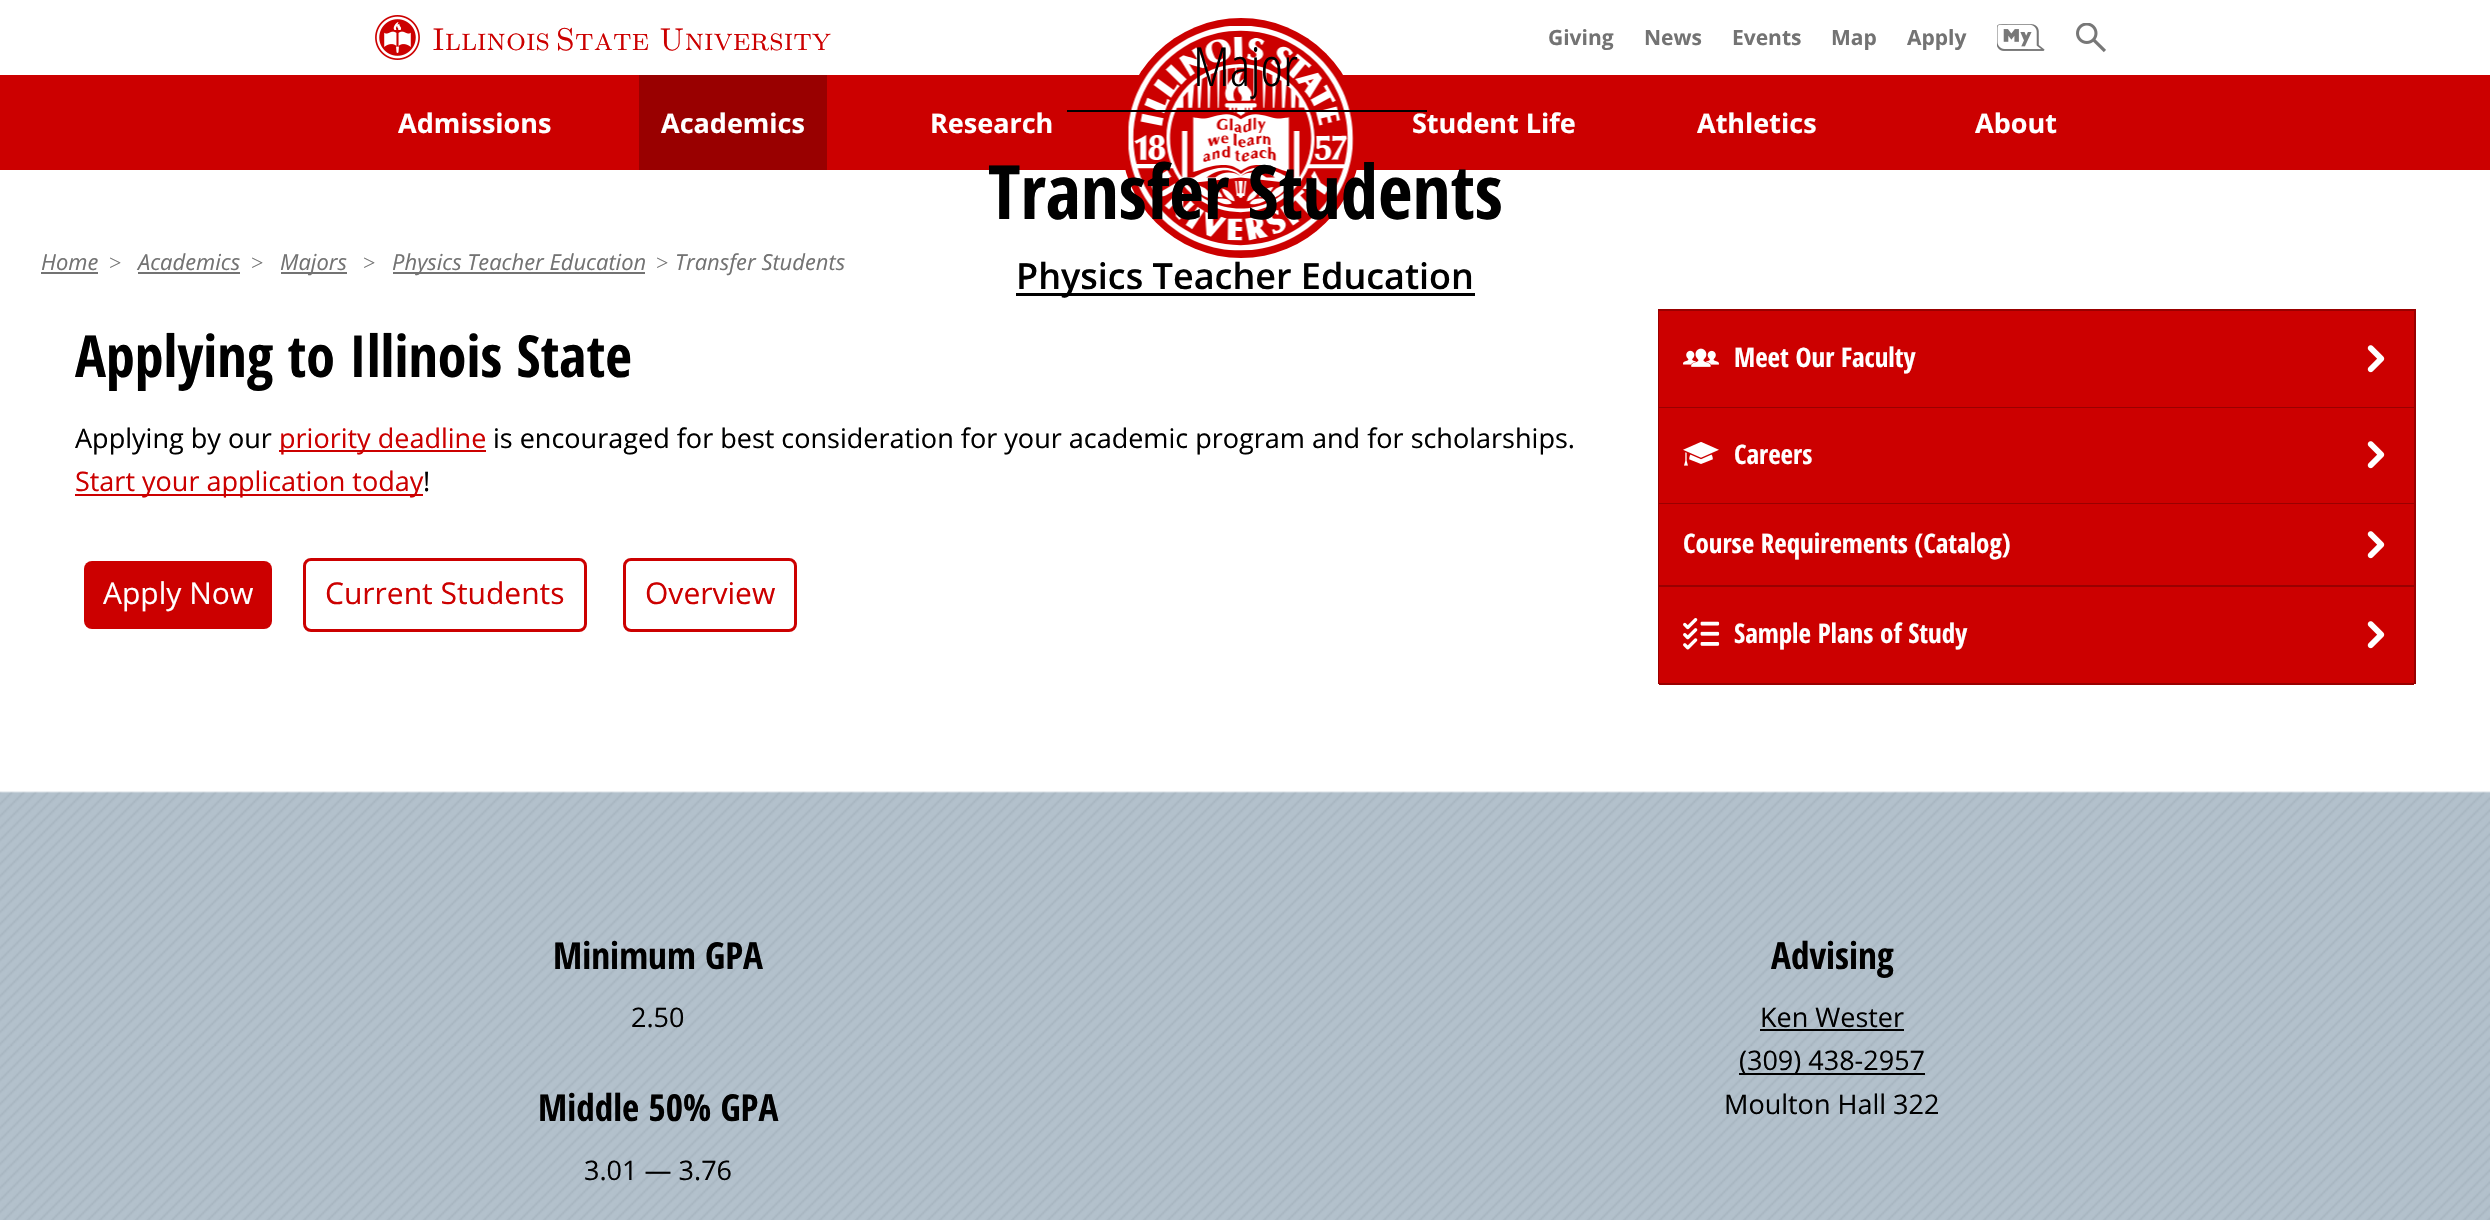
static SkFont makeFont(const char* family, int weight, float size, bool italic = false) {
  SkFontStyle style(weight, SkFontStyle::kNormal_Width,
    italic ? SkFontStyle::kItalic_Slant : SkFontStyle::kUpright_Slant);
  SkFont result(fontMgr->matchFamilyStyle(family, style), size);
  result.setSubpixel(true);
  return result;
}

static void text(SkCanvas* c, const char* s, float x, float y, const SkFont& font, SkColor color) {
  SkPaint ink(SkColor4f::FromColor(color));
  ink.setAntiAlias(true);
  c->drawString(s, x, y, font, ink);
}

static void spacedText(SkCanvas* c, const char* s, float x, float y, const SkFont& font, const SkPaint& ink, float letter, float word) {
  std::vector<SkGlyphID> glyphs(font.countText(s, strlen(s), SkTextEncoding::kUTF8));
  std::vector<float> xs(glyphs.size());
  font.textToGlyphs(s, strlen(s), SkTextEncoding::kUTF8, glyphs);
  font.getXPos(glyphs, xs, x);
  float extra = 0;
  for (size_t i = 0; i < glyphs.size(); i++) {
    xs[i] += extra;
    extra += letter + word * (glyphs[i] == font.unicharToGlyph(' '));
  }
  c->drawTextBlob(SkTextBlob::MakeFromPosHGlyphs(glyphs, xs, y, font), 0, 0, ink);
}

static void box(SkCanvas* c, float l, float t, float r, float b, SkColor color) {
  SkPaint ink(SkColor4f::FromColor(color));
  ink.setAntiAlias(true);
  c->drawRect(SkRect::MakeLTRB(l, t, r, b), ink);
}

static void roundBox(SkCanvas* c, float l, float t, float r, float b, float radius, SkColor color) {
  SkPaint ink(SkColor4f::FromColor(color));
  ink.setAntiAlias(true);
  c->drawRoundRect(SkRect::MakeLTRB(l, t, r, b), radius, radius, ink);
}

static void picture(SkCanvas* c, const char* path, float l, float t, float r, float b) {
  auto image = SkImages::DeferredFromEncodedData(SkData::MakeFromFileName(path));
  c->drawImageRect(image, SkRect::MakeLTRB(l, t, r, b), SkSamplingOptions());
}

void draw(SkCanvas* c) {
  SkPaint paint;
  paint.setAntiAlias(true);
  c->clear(0xffffffff);
  picture(c, "img_01.png", 375, 15, 420, 60);
  SkFont face1 = makeFont("Latin Modern Roman Caps", 400, 31.5f);
  paint.setColor(0xffcc0000);
  spacedText(c, "Illinois State", 432, 50, face1, paint, 0, -6);
  text(c, "University", 659, 50, face1, 0xffcc0000);
  SkFont face2 = makeFont("Open Sans", 700, 21);
  text(c, "Giving", 1548, 45, face2, 0xff737373);
  text(c, "News", 1644, 45, face2, 0xff737373);
  text(c, "Events", 1732, 45, face2, 0xff737373);
  text(c, "Map", 1831, 45, face2, 0xff737373);
  text(c, "Apply", 1907, 45, face2, 0xff737373);
  picture(c, "img_02.png", 1997, 24, 2045, 51);
  picture(c, "img_03.png", 2076, 23, 2106, 53);
  SkFont face3 = makeFont("Open Sans", 400, 22, true);
  text(c, "Home", 41, 270, face3, 0xff737373);
  box(c, 41, 272, 98, 274, 0xff737373);
  SkFont face4 = makeFont("Liberation Serif", 400, 22);
  text(c, ">", 109, 270, face4, 0xff737373);
  text(c, "Academics", 138, 270, face3, 0xff737373);
  box(c, 138, 272, 240, 274, 0xff737373);
  text(c, ">", 251, 270, face4, 0xff737373);
  box(c, 281, 272, 347, 274, 0xff737373);
  text(c, "Majors", 280, 270, face3, 0xff737373);
  text(c, ">", 363, 270, face4, 0xff737373);
  box(c, 393, 272, 645, 274, 0xff737373);
  text(c, "Physics Teacher Education", 392, 270, face3, 0xff737373);
  text(c, ">", 656, 270, face4, 0xff737373);
  text(c, "Transfer Students", 675, 270, face3, 0xff737373);
  box(c, 0, 75, 2490, 170, 0xffcc0000);
  c->drawCircle(1241, 138, 120, paint);
  picture(c, "img_09.png", 1128, 26, 1354, 251);
  box(c, 1067, 110, 1427, 112, 0xff000000);
  SkFont face5 = makeFont("Open Sans", 300, 54);
  text(c, "Major", 1193, 86, face5, 0xff000000);
  SkFont face6 = makeFont("Open Sans Condensed", 700, 75);
  text(c, "Transfer Students", 988, 219, face6, 0xff000000);
  box(c, 1016, 293, 1475, 296, 0xff000000);
  SkFont face7 = makeFont("Open Sans", 600, 36);
  text(c, "Physics Teacher Education", 1016, 289, face7, 0xff000000);
  SkFont face8 = makeFont("Open Sans Condensed", 700, 58);
  text(c, "Applying to Illinois State", 75, 377, face8, 0xff000000);
  SkFont face9 = makeFont("Open Sans", 400, 27);
  text(c, "Applying by our", 75, 448, face9, 0xff000000);
  box(c, 279, 450, 486, 452, 0xffcc0000);
  text(c, "priority deadline", 279, 448, face9, 0xffcc0000);
  text(c, "is encouraged for best consideration for your academic program and for scholarships.", 493, 448, face9, 0xff000000);
  box(c, 75, 494, 423, 496, 0xffcc0000);
  text(c, "Start your application today", 75, 491, face9, 0xffcc0000);
  text(c, "!", 423, 491, face9, 0xff000000);
  roundBox(c, 84, 561, 272, 629, 8, 0xffcc0000);
  SkFont face10 = makeFont("Open Sans", 400, 30);
  text(c, "Apply Now", 103, 604, face10, 0xffffffff);
  paint.setStyle(SkPaint::kStroke_Style);
  paint.setStrokeWidth(3);
  c->drawRoundRect(SkRect::MakeLTRB(304.5f, 559.5f, 585.5f, 630.5f), 6.5f, 6.5f, paint);
  text(c, "Current Students", 325, 604, face10, 0xffcc0000);
  c->drawRoundRect(SkRect::MakeLTRB(624.5f, 559.5f, 795.5f, 630.5f), 6.5f, 6.5f, paint);
  text(c, "Overview", 645, 604, face10, 0xffcc0000);
  box(c, 1658, 309, 2415, 311, 0xff990000);
  box(c, 2414, 309, 2416, 684, 0xff990000);
  box(c, 1658, 309, 1660, 684, 0xff990000);
  box(c, 1659, 311, 2414, 407, 0xffcc0000);
  box(c, 1659, 407, 2414, 408, 0xff990000);
  picture(c, "img_04.png", 1683, 348, 1719, 367);
  SkFont face11 = makeFont("Open Sans Condensed", 700, 27);
  text(c, "Meet Our Faculty", 1734, 367, face11, 0xffffffff);
  picture(c, "img_05.png", 2367, 345, 2385, 373);
  box(c, 1659, 408, 2414, 503, 0xffcc0000);
  box(c, 1659, 503, 2414, 504, 0xff990000);
  picture(c, "img_06.png", 1683, 442, 1719, 466);
  text(c, "Careers", 1734, 464, face11, 0xffffffff);
  picture(c, "img_05.png", 2367, 441, 2385, 469);
  box(c, 1659, 504, 2414, 585, 0xffcc0000);
  box(c, 1659, 585, 2414, 587, 0xff990000);
  text(c, "Course Requirements (Catalog)", 1683, 553, face11, 0xffffffff);
  picture(c, "img_05.png", 2367, 531, 2385, 559);
  box(c, 1659, 587, 2414, 683, 0xffcc0000);
  box(c, 1659, 683, 2414, 685, 0xff990000);
  picture(c, "img_07.png", 1683, 618, 1720, 650);
  text(c, "Sample Plans of Study", 1734, 643, face11, 0xffffffff);
  picture(c, "img_05.png", 2367, 621, 2385, 649);
  picture(c, "img_08.png", 0, 791, 2490, 1220);
  SkFont face12 = makeFont("Open Sans Condensed", 700, 37.25f);
  text(c, "Minimum GPA", 553, 969, face12, 0xff000000);
  text(c, "2.50", 631, 1027, face9, 0xff000000);
  text(c, "Middle 50% GPA", 538, 1121, face12, 0xff000000);
  text(c, "3.01 — 3.76", 584, 1180, face9, 0xff000000);
  text(c, "Advising", 1771, 969, face12, 0xff000000);
  text(c, "Ken Wester", 1760, 1027, face9, 0xff000000);
  box(c, 1760, 1029, 1904, 1031, 0xff000000);
  box(c, 1739, 1073, 1925, 1075, 0xff000000);
  text(c, "(309) 438-2957", 1739, 1070, face9, 0xff000000);
  text(c, "Moulton Hall 322", 1724, 1114, face9, 0xff000000);
  SkFont face13 = makeFont("Open Sans", 700, 27);
  text(c, "Admissions", 398, 133, face13, 0xffffffff);
  box(c, 639, 75, 827, 170, 0xff990000);
  text(c, "Academics", 661, 133, face13, 0xffffffff);
  text(c, "Research", 930, 133, face13, 0xffffffff);
  text(c, "Student Life", 1412, 133, face13, 0xffffffff);
  text(c, "Athletics", 1697, 133, face13, 0xffffffff);
  text(c, "About", 1975, 133, face13, 0xffffffff);
}
